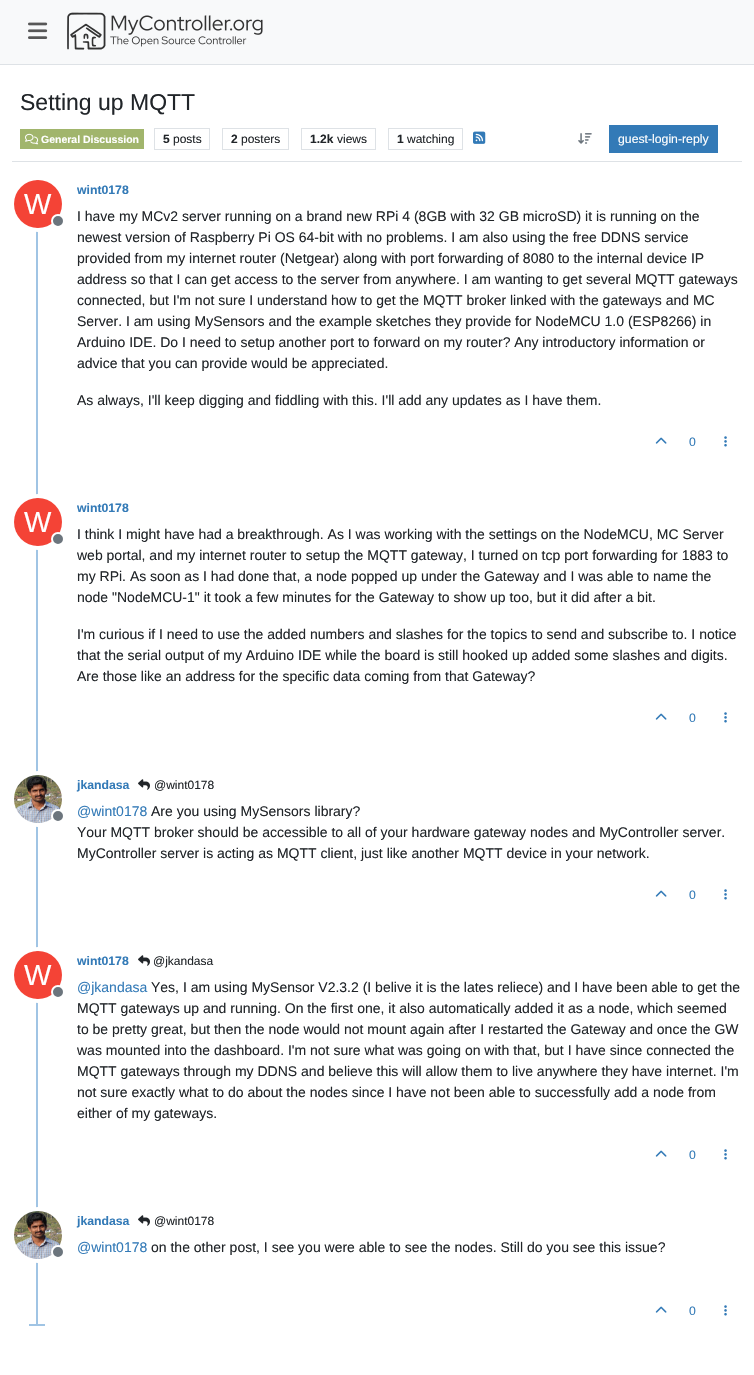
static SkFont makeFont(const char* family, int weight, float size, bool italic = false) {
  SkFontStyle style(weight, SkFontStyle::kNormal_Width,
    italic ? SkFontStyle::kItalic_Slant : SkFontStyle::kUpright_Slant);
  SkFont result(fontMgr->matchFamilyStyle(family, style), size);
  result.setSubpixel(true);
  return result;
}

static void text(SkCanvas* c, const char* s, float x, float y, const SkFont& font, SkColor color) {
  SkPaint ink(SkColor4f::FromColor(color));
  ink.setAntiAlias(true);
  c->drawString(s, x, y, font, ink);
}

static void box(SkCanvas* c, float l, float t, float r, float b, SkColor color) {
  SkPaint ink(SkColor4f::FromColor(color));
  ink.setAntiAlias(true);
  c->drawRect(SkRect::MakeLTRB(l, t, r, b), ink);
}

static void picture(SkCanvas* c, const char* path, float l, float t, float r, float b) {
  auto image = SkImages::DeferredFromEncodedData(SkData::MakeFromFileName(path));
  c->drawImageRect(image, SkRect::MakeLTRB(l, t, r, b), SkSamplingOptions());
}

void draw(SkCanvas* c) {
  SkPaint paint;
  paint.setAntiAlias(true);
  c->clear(0xffffffff);
  box(c, 0, 0, 754, 64, 0xfff8f9fa);
  box(c, 0, 64, 754, 65, 0xffdee2e6);
  picture(c, "img_01.png", 28, 22, 48, 39);
  picture(c, "img_02.png", 67, 12, 263, 50);
  box(c, 12, 161, 742, 162, 0xffdee2e6);
  SkFont face1 = makeFont("Liberation Sans", 400, 23);
  text(c, "Setting up MQTT", 20, 110, face1, 0xff212529);
  box(c, 20, 129, 144, 149, 0xffa1b56c);
  picture(c, "img_03.png", 25, 133, 39, 145);
  SkFont face2 = makeFont("Liberation Sans", 700, 10.5f);
  text(c, "General Discussion", 41, 143, face2, 0xffffffff);
  paint.setStyle(SkPaint::kStroke_Style);
  paint.setStrokeWidth(1);
  paint.setColor(0xffdee2e6);
  c->drawRect(SkRect::MakeLTRB(154.5f, 128.5f, 209.5f, 149.5f), paint);
  SkFont face3 = makeFont("Liberation Sans", 700, 12);
  text(c, "5", 163, 143, face3, 0xff212529);
  SkFont face4 = makeFont("Liberation Sans", 400, 12);
  text(c, "posts", 173, 143, face4, 0xff212529);
  c->drawRect(SkRect::MakeLTRB(222.5f, 128.5f, 288.5f, 149.5f), paint);
  text(c, "2", 231, 143, face3, 0xff212529);
  text(c, "posters", 241, 143, face4, 0xff212529);
  c->drawRect(SkRect::MakeLTRB(301.5f, 128.5f, 375.5f, 149.5f), paint);
  text(c, "1.2k", 310, 143, face3, 0xff212529);
  text(c, "views", 337, 143, face4, 0xff212529);
  c->drawRect(SkRect::MakeLTRB(388.5f, 128.5f, 462.5f, 149.5f), paint);
  text(c, "1", 397, 143, face3, 0xff212529);
  text(c, "watching", 407, 143, face4, 0xff212529);
  picture(c, "img_04.png", 473, 131, 486, 144);
  picture(c, "img_05.png", 578, 133, 592, 144);
  box(c, 609, 125, 718, 153, 0xff337ab7);
  SkFont face5 = makeFont("Liberation Sans", 400, 12.25f);
  text(c, "guest-login-reply", 618, 143, face5, 0xffffffff);
  box(c, 36, 178, 38, 1326, 0xffa0c4e4);
  SkFont face6 = makeFont("Liberation Sans", 700, 12.25f);
  text(c, "wint0178", 77, 194, face6, 0xff337ab7);
  paint.setStrokeWidth(4);
  paint.setColor(0xffffffff);
  c->drawCircle(38, 204, 26, paint);
  paint.setStyle(SkPaint::kFill_Style);
  paint.setColor(0xfff44336);
  c->drawCircle(38, 204, 24, paint);
  SkFont face7 = makeFont("Liberation Sans", 400, 29);
  text(c, "W", 24, 214, face7, 0xffffffff);
  paint.setColor(0xff6c757d);
  c->drawCircle(58, 221, 6, paint);
  paint.setStyle(SkPaint::kStroke_Style);
  paint.setStrokeWidth(2);
  paint.setColor(0xffffffff);
  c->drawCircle(58, 221, 6, paint);
  SkFont face8 = makeFont("Liberation Sans", 400, 14);
  text(c, "I have my MCv2 server running on a brand new RPi 4 (8GB with 32 GB microSD) it is running on the", 77, 221, face8, 0xff212529);
  text(c, "newest version of Raspberry Pi OS 64-bit with no problems. I am also using the free DDNS service", 77, 242, face8, 0xff212529);
  text(c, "provided from my internet router (Netgear) along with port forwarding of 8080 to the internal device IP", 77, 263, face8, 0xff212529);
  text(c, "address so that I can get access to the server from anywhere. I am wanting to get several MQTT gateways", 77, 284, face8, 0xff212529);
  text(c, "connected, but I'm not sure I understand how to get the MQTT broker linked with the gateways and MC", 77, 305, face8, 0xff212529);
  text(c, "Server. I am using MySensors and the example sketches they provide for NodeMCU 1.0 (ESP8266) in", 77, 326, face8, 0xff212529);
  text(c, "Arduino IDE. Do I need to setup another port to forward on my router? Any introductory information or", 77, 347, face8, 0xff212529);
  text(c, "advice that you can provide would be appreciated.", 77, 368, face8, 0xff212529);
  text(c, "As always, I'll keep digging and fiddling with this. I'll add any updates as I have them.", 77, 405, face8, 0xff212529);
  picture(c, "img_06.png", 655, 437, 667, 444);
  text(c, "0", 689, 446, face5, 0xff337ab7);
  picture(c, "img_07.png", 724, 436, 727, 447);
  text(c, "wint0178", 77, 512, face6, 0xff337ab7);
  paint.setStrokeWidth(4);
  c->drawCircle(38, 522, 26, paint);
  paint.setStyle(SkPaint::kFill_Style);
  paint.setColor(0xfff44336);
  c->drawCircle(38, 522, 24, paint);
  text(c, "W", 24, 532, face7, 0xffffffff);
  paint.setColor(0xff6c757d);
  c->drawCircle(58, 539, 6, paint);
  paint.setStyle(SkPaint::kStroke_Style);
  paint.setStrokeWidth(2);
  paint.setColor(0xffffffff);
  c->drawCircle(58, 539, 6, paint);
  text(c, "I think I might have had a breakthrough. As I was working with the settings on the NodeMCU, MC Server", 77, 539, face8, 0xff212529);
  text(c, "web portal, and my internet router to setup the MQTT gateway, I turned on tcp port forwarding for 1883 to", 77, 560, face8, 0xff212529);
  text(c, "my RPi. As soon as I had done that, a node popped up under the Gateway and I was able to name the", 77, 581, face8, 0xff212529);
  text(c, "node \"NodeMCU-1\" it took a few minutes for the Gateway to show up too, but it did after a bit.", 77, 602, face8, 0xff212529);
  text(c, "I'm curious if I need to use the added numbers and slashes for the topics to send and subscribe to. I notice", 77, 639, face8, 0xff212529);
  text(c, "that the serial output of my Arduino IDE while the board is still hooked up added some slashes and digits.", 77, 660, face8, 0xff212529);
  text(c, "Are those like an address for the specific data coming from that Gateway?", 77, 681, face8, 0xff212529);
  picture(c, "img_06.png", 655, 713, 667, 720);
  text(c, "0", 689, 722, face5, 0xff337ab7);
  picture(c, "img_07.png", 724, 712, 727, 723);
  paint.setStrokeWidth(4);
  c->drawCircle(38, 799, 26, paint);
  picture(c, "img_08.png", 14, 775, 62, 823);
  paint.setStyle(SkPaint::kFill_Style);
  paint.setColor(0xff6c757d);
  c->drawCircle(58, 816, 6, paint);
  paint.setStyle(SkPaint::kStroke_Style);
  paint.setStrokeWidth(2);
  paint.setColor(0xffffffff);
  c->drawCircle(58, 816, 6, paint);
  text(c, "jkandasa", 77, 789, face6, 0xff337ab7);
  picture(c, "img_09.png", 138, 779, 150, 790);
  text(c, "@wint0178", 154, 789, face4, 0xff212529);
  text(c, "@wint0178", 77, 816, face8, 0xff337ab7);
  text(c, "Are you using MySensors library?", 151, 816, face8, 0xff212529);
  text(c, "Your MQTT broker should be accessible to all of your hardware gateway nodes and MyController server.", 77, 837, face8, 0xff212529);
  text(c, "MyController server is acting as MQTT client, just like another MQTT device in your network.", 77, 858, face8, 0xff212529);
  picture(c, "img_06.png", 655, 890, 667, 897);
  text(c, "0", 689, 899, face5, 0xff337ab7);
  picture(c, "img_07.png", 724, 889, 727, 900);
  text(c, "wint0178", 77, 965, face6, 0xff337ab7);
  picture(c, "img_09.png", 138, 955, 150, 966);
  text(c, "@jkandasa", 153, 965, face4, 0xff212529);
  paint.setStrokeWidth(4);
  c->drawCircle(38, 975, 26, paint);
  paint.setStyle(SkPaint::kFill_Style);
  paint.setColor(0xfff44336);
  c->drawCircle(38, 975, 24, paint);
  text(c, "W", 24, 985, face7, 0xffffffff);
  paint.setColor(0xff6c757d);
  c->drawCircle(58, 992, 6, paint);
  paint.setStyle(SkPaint::kStroke_Style);
  paint.setStrokeWidth(2);
  paint.setColor(0xffffffff);
  c->drawCircle(58, 992, 6, paint);
  text(c, "@jkandasa", 77, 992, face8, 0xff337ab7);
  text(c, "Yes, I am using MySensor V2.3.2 (I belive it is the lates reliece) and I have been able to get the", 151, 992, face8, 0xff212529);
  text(c, "MQTT gateways up and running. On the first one, it also automatically added it as a node, which seemed", 77, 1013, face8, 0xff212529);
  text(c, "to be pretty great, but then the node would not mount again after I restarted the Gateway and once the GW", 77, 1034, face8, 0xff212529);
  text(c, "was mounted into the dashboard. I'm not sure what was going on with that, but I have since connected the", 77, 1055, face8, 0xff212529);
  text(c, "MQTT gateways through my DDNS and believe this will allow them to live anywhere they have internet. I'm", 77, 1076, face8, 0xff212529);
  text(c, "not sure exactly what to do about the nodes since I have not been able to successfully add a node from", 77, 1097, face8, 0xff212529);
  text(c, "either of my gateways.", 77, 1118, face8, 0xff212529);
  picture(c, "img_06.png", 655, 1150, 667, 1157);
  text(c, "0", 689, 1159, face5, 0xff337ab7);
  picture(c, "img_07.png", 724, 1149, 727, 1160);
  paint.setStrokeWidth(4);
  c->drawCircle(38, 1235, 26, paint);
  picture(c, "img_08.png", 14, 1211, 62, 1259);
  paint.setStyle(SkPaint::kFill_Style);
  paint.setColor(0xff6c757d);
  c->drawCircle(58, 1252, 6, paint);
  paint.setStyle(SkPaint::kStroke_Style);
  paint.setStrokeWidth(2);
  paint.setColor(0xffffffff);
  c->drawCircle(58, 1252, 6, paint);
  text(c, "jkandasa", 77, 1225, face6, 0xff337ab7);
  picture(c, "img_09.png", 138, 1215, 150, 1226);
  text(c, "@wint0178", 154, 1225, face4, 0xff212529);
  text(c, "@wint0178", 77, 1252, face8, 0xff337ab7);
  text(c, "on the other post, I see you were able to see the nodes. Still do you see this issue?", 151, 1252, face8, 0xff212529);
  picture(c, "img_06.png", 655, 1306, 667, 1313);
  text(c, "0", 689, 1315, face5, 0xff337ab7);
  picture(c, "img_07.png", 724, 1305, 727, 1316);
  box(c, 29, 1324, 45, 1326, 0xffa0c4e4);
}
